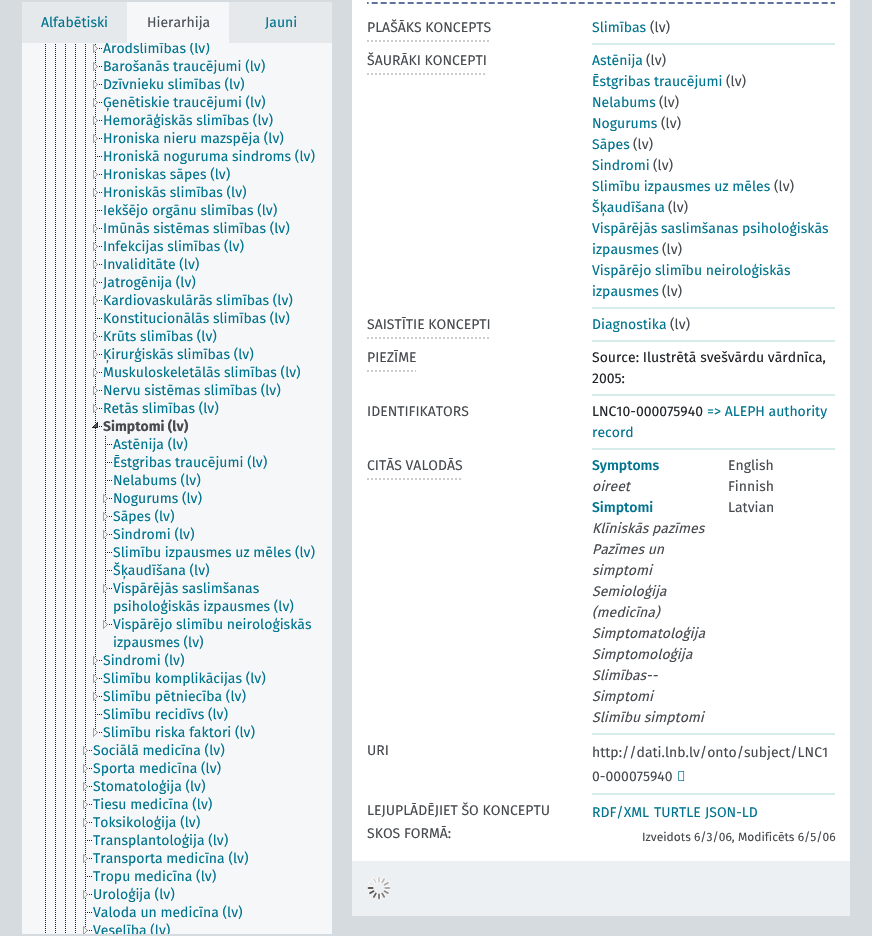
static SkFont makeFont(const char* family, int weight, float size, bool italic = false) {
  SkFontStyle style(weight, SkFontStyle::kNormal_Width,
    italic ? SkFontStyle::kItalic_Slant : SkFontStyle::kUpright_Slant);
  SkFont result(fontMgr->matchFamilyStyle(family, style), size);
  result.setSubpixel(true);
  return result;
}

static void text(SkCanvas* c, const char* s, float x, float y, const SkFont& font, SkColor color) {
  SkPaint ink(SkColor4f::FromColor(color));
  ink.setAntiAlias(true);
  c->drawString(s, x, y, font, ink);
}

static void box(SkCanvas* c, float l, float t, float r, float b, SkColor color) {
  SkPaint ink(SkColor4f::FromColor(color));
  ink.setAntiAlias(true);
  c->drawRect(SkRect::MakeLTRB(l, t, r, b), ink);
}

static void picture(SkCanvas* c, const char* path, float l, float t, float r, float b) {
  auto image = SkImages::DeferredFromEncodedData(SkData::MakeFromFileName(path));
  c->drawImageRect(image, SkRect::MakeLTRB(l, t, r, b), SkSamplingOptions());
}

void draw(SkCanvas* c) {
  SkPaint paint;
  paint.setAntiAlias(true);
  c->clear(0xffd5dbde);
  box(c, 22, 2, 127, 43, 0xffe6e9eb);
  SkFont face1 = makeFont("Fira Sans", 400, 14);
  text(c, "Alfabētiski", 41, 27, face1, 0xff00748f);
  box(c, 127, 2, 229, 43, 0xfff6f7f8);
  text(c, "Hierarhija", 147, 27, face1, 0xff495057);
  box(c, 229, 2, 332, 43, 0xffe6e9eb);
  text(c, "Jauni", 265, 27, face1, 0xff00748f);
  box(c, 22, 43, 332, 934, 0xfff6f7f8);
  picture(c, "img_01.png", 45, 44, 46, 933);
  picture(c, "img_01.png", 55, 44, 56, 933);
  picture(c, "img_01.png", 65, 44, 66, 933);
  picture(c, "img_01.png", 75, 44, 76, 933);
  picture(c, "img_02.png", 85, 44, 86, 741);
  picture(c, "img_03.png", 95, 52, 96, 57);
  picture(c, "img_04.png", 93, 44, 102, 53);
  c->save();
  c->clipRect(SkRect::MakeLTRB(22, 43, 332, 934));
  text(c, "Arodslimības (lv)", 103, 53, face1, 0xff00748f);
  c->restore();
  picture(c, "img_05.png", 95, 58, 96, 75);
  picture(c, "img_04.png", 93, 62, 102, 71);
  text(c, "Barošanās traucējumi (lv)", 103, 71, face1, 0xff00748f);
  picture(c, "img_05.png", 95, 76, 96, 93);
  picture(c, "img_04.png", 93, 80, 102, 89);
  text(c, "Dzīvnieku slimības (lv)", 103, 89, face1, 0xff00748f);
  picture(c, "img_05.png", 95, 94, 96, 111);
  picture(c, "img_04.png", 93, 98, 102, 107);
  text(c, "Ģenētiskie traucējumi (lv)", 103, 107, face1, 0xff00748f);
  picture(c, "img_05.png", 95, 112, 96, 129);
  picture(c, "img_04.png", 93, 116, 102, 125);
  text(c, "Hemorāģiskās slimības (lv)", 103, 125, face1, 0xff00748f);
  picture(c, "img_05.png", 95, 130, 96, 147);
  picture(c, "img_04.png", 93, 134, 102, 143);
  text(c, "Hroniska nieru mazspēja (lv)", 103, 143, face1, 0xff00748f);
  picture(c, "img_05.png", 95, 148, 96, 165);
  picture(c, "img_06.png", 97, 156, 102, 157);
  text(c, "Hroniskā noguruma sindroms (lv)", 103, 161, face1, 0xff00748f);
  picture(c, "img_05.png", 95, 166, 96, 183);
  picture(c, "img_04.png", 93, 170, 102, 179);
  text(c, "Hroniskas sāpes (lv)", 103, 179, face1, 0xff00748f);
  picture(c, "img_05.png", 95, 184, 96, 201);
  picture(c, "img_04.png", 93, 188, 102, 197);
  text(c, "Hroniskās slimības (lv)", 103, 197, face1, 0xff00748f);
  picture(c, "img_05.png", 95, 202, 96, 219);
  picture(c, "img_06.png", 97, 210, 102, 211);
  text(c, "Iekšējo orgānu slimības (lv)", 103, 215, face1, 0xff00748f);
  picture(c, "img_05.png", 95, 220, 96, 237);
  picture(c, "img_04.png", 93, 224, 102, 233);
  text(c, "Imūnās sistēmas slimības (lv)", 103, 233, face1, 0xff00748f);
  picture(c, "img_05.png", 95, 238, 96, 255);
  picture(c, "img_04.png", 93, 242, 102, 251);
  text(c, "Infekcijas slimības (lv)", 103, 251, face1, 0xff00748f);
  picture(c, "img_05.png", 95, 256, 96, 273);
  picture(c, "img_04.png", 93, 260, 102, 269);
  text(c, "Invaliditāte (lv)", 103, 269, face1, 0xff00748f);
  picture(c, "img_05.png", 95, 274, 96, 291);
  picture(c, "img_04.png", 93, 278, 102, 287);
  text(c, "Jatrogēnija (lv)", 103, 287, face1, 0xff00748f);
  picture(c, "img_05.png", 95, 292, 96, 309);
  picture(c, "img_04.png", 93, 296, 102, 305);
  text(c, "Kardiovaskulārās slimības (lv)", 103, 305, face1, 0xff00748f);
  picture(c, "img_05.png", 95, 310, 96, 327);
  picture(c, "img_06.png", 97, 318, 102, 319);
  text(c, "Konstitucionālās slimības (lv)", 103, 323, face1, 0xff00748f);
  picture(c, "img_05.png", 95, 328, 96, 345);
  picture(c, "img_04.png", 93, 332, 102, 341);
  text(c, "Krūts slimības (lv)", 103, 341, face1, 0xff00748f);
  picture(c, "img_05.png", 95, 346, 96, 363);
  picture(c, "img_04.png", 93, 350, 102, 359);
  text(c, "Ķirurģiskās slimības (lv)", 103, 359, face1, 0xff00748f);
  picture(c, "img_05.png", 95, 364, 96, 381);
  picture(c, "img_04.png", 93, 368, 102, 377);
  text(c, "Muskuloskeletālās slimības (lv)", 103, 377, face1, 0xff00748f);
  picture(c, "img_05.png", 95, 382, 96, 399);
  picture(c, "img_04.png", 93, 386, 102, 395);
  text(c, "Nervu sistēmas slimības (lv)", 103, 395, face1, 0xff00748f);
  picture(c, "img_05.png", 95, 400, 96, 417);
  picture(c, "img_04.png", 93, 404, 102, 413);
  text(c, "Retās slimības (lv)", 103, 413, face1, 0xff00748f);
  picture(c, "img_07.png", 95, 418, 96, 651);
  picture(c, "img_08.png", 92, 422, 102, 428);
  SkFont face2 = makeFont("Fira Sans", 700, 14);
  text(c, "Simptomi (lv)", 103, 431, face2, 0xff474b4f);
  picture(c, "img_05.png", 105, 436, 106, 453);
  picture(c, "img_06.png", 107, 444, 112, 445);
  text(c, "Astēnija (lv)", 113, 449, face1, 0xff00748f);
  picture(c, "img_05.png", 105, 454, 106, 471);
  picture(c, "img_06.png", 107, 462, 112, 463);
  text(c, "Ēstgribas traucējumi (lv)", 113, 467, face1, 0xff00748f);
  picture(c, "img_05.png", 105, 472, 106, 489);
  picture(c, "img_06.png", 107, 480, 112, 481);
  text(c, "Nelabums (lv)", 113, 485, face1, 0xff00748f);
  picture(c, "img_05.png", 105, 490, 106, 507);
  picture(c, "img_04.png", 103, 494, 112, 503);
  text(c, "Nogurums (lv)", 113, 503, face1, 0xff00748f);
  picture(c, "img_05.png", 105, 508, 106, 525);
  picture(c, "img_04.png", 103, 512, 112, 521);
  text(c, "Sāpes (lv)", 113, 521, face1, 0xff00748f);
  picture(c, "img_05.png", 105, 526, 106, 543);
  picture(c, "img_04.png", 103, 530, 112, 539);
  text(c, "Sindromi (lv)", 113, 539, face1, 0xff00748f);
  picture(c, "img_05.png", 105, 544, 106, 561);
  picture(c, "img_06.png", 107, 552, 112, 553);
  text(c, "Slimību izpausmes uz mēles (lv)", 113, 557, face1, 0xff00748f);
  picture(c, "img_05.png", 105, 562, 106, 579);
  picture(c, "img_06.png", 107, 570, 112, 571);
  text(c, "Šķaudīšana (lv)", 113, 575, face1, 0xff00748f);
  picture(c, "img_09.png", 105, 580, 106, 615);
  picture(c, "img_04.png", 103, 584, 112, 593);
  text(c, "Vispārējās saslimšanas", 113, 593, face1, 0xff00748f);
  text(c, "psiholoģiskās izpausmes (lv)", 113, 611, face1, 0xff00748f);
  picture(c, "img_10.png", 103, 616, 112, 629);
  text(c, "Vispārējo slimību neiroloģiskās", 113, 629, face1, 0xff00748f);
  text(c, "izpausmes (lv)", 113, 647, face1, 0xff00748f);
  picture(c, "img_05.png", 95, 652, 96, 669);
  picture(c, "img_04.png", 93, 656, 102, 665);
  text(c, "Sindromi (lv)", 103, 665, face1, 0xff00748f);
  picture(c, "img_05.png", 95, 670, 96, 687);
  picture(c, "img_04.png", 93, 674, 102, 683);
  text(c, "Slimību komplikācijas (lv)", 103, 683, face1, 0xff00748f);
  picture(c, "img_05.png", 95, 688, 96, 705);
  picture(c, "img_04.png", 93, 692, 102, 701);
  text(c, "Slimību pētniecība (lv)", 103, 701, face1, 0xff00748f);
  picture(c, "img_05.png", 95, 706, 96, 723);
  picture(c, "img_06.png", 97, 714, 102, 715);
  text(c, "Slimību recidīvs (lv)", 103, 719, face1, 0xff00748f);
  picture(c, "img_10.png", 93, 724, 102, 737);
  text(c, "Slimību riska faktori (lv)", 103, 737, face1, 0xff00748f);
  picture(c, "img_05.png", 85, 742, 86, 759);
  picture(c, "img_04.png", 83, 746, 92, 755);
  text(c, "Sociālā medicīna (lv)", 93, 755, face1, 0xff00748f);
  picture(c, "img_05.png", 85, 760, 86, 777);
  picture(c, "img_04.png", 83, 764, 92, 773);
  text(c, "Sporta medicīna (lv)", 93, 773, face1, 0xff00748f);
  picture(c, "img_05.png", 85, 778, 86, 795);
  picture(c, "img_04.png", 83, 782, 92, 791);
  text(c, "Stomatoloģija (lv)", 93, 791, face1, 0xff00748f);
  picture(c, "img_05.png", 85, 796, 86, 813);
  picture(c, "img_04.png", 83, 800, 92, 809);
  text(c, "Tiesu medicīna (lv)", 93, 809, face1, 0xff00748f);
  picture(c, "img_05.png", 85, 814, 86, 831);
  picture(c, "img_04.png", 83, 818, 92, 827);
  text(c, "Toksikoloģija (lv)", 93, 827, face1, 0xff00748f);
  picture(c, "img_05.png", 85, 832, 86, 849);
  picture(c, "img_06.png", 87, 840, 92, 841);
  text(c, "Transplantoloģija (lv)", 93, 845, face1, 0xff00748f);
  picture(c, "img_05.png", 85, 850, 86, 867);
  picture(c, "img_04.png", 83, 854, 92, 863);
  text(c, "Transporta medicīna (lv)", 93, 863, face1, 0xff00748f);
  picture(c, "img_05.png", 85, 868, 86, 885);
  picture(c, "img_06.png", 87, 876, 92, 877);
  text(c, "Tropu medicīna (lv)", 93, 881, face1, 0xff00748f);
  picture(c, "img_05.png", 85, 886, 86, 903);
  picture(c, "img_04.png", 83, 890, 92, 899);
  text(c, "Uroloģija (lv)", 93, 899, face1, 0xff00748f);
  picture(c, "img_05.png", 85, 904, 86, 921);
  picture(c, "img_06.png", 87, 912, 92, 913);
  text(c, "Valoda un medicīna (lv)", 93, 917, face1, 0xff00748f);
  picture(c, "img_11.png", 85, 922, 86, 925);
  picture(c, "img_12.png", 83, 926, 92, 934);
  c->save();
  c->clipRect(SkRect::MakeLTRB(22, 43, 332, 934));
  text(c, "Veselība (lv)", 93, 935, face1, 0xff00748f);
  c->restore();
  box(c, 352, 0, 850, 861, 0xffffffff);
  picture(c, "img_13.png", 367, 2, 835, 4);
  paint.setStyle(SkPaint::kStroke_Style);
  paint.setStrokeWidth(2);
  paint.setColor(0xffcccccc);
  paint.setPathEffect(SkDashPathEffect::Make({{2, 2}}, 0));
  c->drawPath(SkPathBuilder().moveTo(367, 41).lineTo(491, 41).detach(), paint);
  paint.setPathEffect(nullptr);
  text(c, "PLAŠĀKS KONCEPTS", 367, 32, face1, 0xff474b4f);
  box(c, 592, 43, 835, 45, 0xffd4edeb);
  text(c, "Slimības", 592, 32, face1, 0xff00748f);
  text(c, "(lv)", 650, 32, face1, 0xff474b4f);
  paint.setPathEffect(SkDashPathEffect::Make({{2, 2}}, 0));
  c->drawPath(SkPathBuilder().moveTo(367, 74).lineTo(487, 74).detach(), paint);
  paint.setPathEffect(nullptr);
  text(c, "ŠAURĀKI KONCEPTI", 367, 65, face1, 0xff474b4f);
  box(c, 592, 307, 835, 309, 0xffd4edeb);
  text(c, "Astēnija", 592, 65, face1, 0xff00748f);
  text(c, "(lv)", 646, 65, face1, 0xff474b4f);
  text(c, "Ēstgribas traucējumi", 592, 86, face1, 0xff00748f);
  text(c, "(lv)", 726, 86, face1, 0xff474b4f);
  text(c, "Nelabums", 592, 107, face1, 0xff00748f);
  text(c, "(lv)", 659, 107, face1, 0xff474b4f);
  text(c, "Nogurums", 592, 128, face1, 0xff00748f);
  text(c, "(lv)", 661, 128, face1, 0xff474b4f);
  text(c, "Sāpes", 592, 149, face1, 0xff00748f);
  text(c, "(lv)", 633, 149, face1, 0xff474b4f);
  text(c, "Sindromi", 592, 170, face1, 0xff00748f);
  text(c, "(lv)", 653, 170, face1, 0xff474b4f);
  text(c, "Slimību izpausmes uz mēles", 592, 191, face1, 0xff00748f);
  text(c, "(lv)", 774, 191, face1, 0xff474b4f);
  text(c, "Šķaudīšana", 592, 212, face1, 0xff00748f);
  text(c, "(lv)", 668, 212, face1, 0xff474b4f);
  text(c, "Vispārējās saslimšanas psiholoģiskās", 592, 233, face1, 0xff00748f);
  text(c, "izpausmes", 592, 254, face1, 0xff00748f);
  text(c, "(lv)", 662, 254, face1, 0xff474b4f);
  text(c, "Vispārējo slimību neiroloģiskās", 592, 275, face1, 0xff00748f);
  text(c, "izpausmes", 592, 296, face1, 0xff00748f);
  text(c, "(lv)", 662, 296, face1, 0xff474b4f);
  paint.setPathEffect(SkDashPathEffect::Make({{2, 2}}, 0));
  c->drawPath(SkPathBuilder().moveTo(367, 338).lineTo(490, 338).detach(), paint);
  paint.setPathEffect(nullptr);
  text(c, "SAISTĪTIE KONCEPTI", 367, 329, face1, 0xff474b4f);
  box(c, 592, 340, 835, 342, 0xffd4edeb);
  text(c, "Diagnostika", 592, 329, face1, 0xff00748f);
  text(c, "(lv)", 670, 329, face1, 0xff474b4f);
  paint.setPathEffect(SkDashPathEffect::Make({{2, 2}}, 0));
  c->drawPath(SkPathBuilder().moveTo(367, 371).lineTo(416, 371).detach(), paint);
  paint.setPathEffect(nullptr);
  text(c, "PIEZĪME", 367, 362, face1, 0xff474b4f);
  box(c, 592, 394, 835, 396, 0xffd4edeb);
  text(c, "Source: Ilustrētā svešvārdu vārdnīca,", 592, 362, face1, 0xff212529);
  text(c, "2005:", 592, 383, face1, 0xff212529);
  text(c, "IDENTIFIKATORS", 367, 416, face1, 0xff474b4f);
  box(c, 592, 448, 835, 450, 0xffd4edeb);
  text(c, "LNC10-000075940", 592, 416, face1, 0xff212529);
  text(c, "=> ALEPH authority", 707, 416, face1, 0xff00748f);
  text(c, "record", 592, 437, face1, 0xff00748f);
  paint.setPathEffect(SkDashPathEffect::Make({{2, 2}}, 0));
  c->drawPath(SkPathBuilder().moveTo(367, 479).lineTo(463, 479).detach(), paint);
  paint.setPathEffect(nullptr);
  text(c, "CITĀS VALODĀS", 367, 470, face1, 0xff474b4f);
  box(c, 592, 733, 835, 735, 0xffd4edeb);
  SkFont face3 = makeFont("Fira Sans", 500, 14);
  text(c, "Symptoms", 592, 470, face3, 0xff00748f);
  text(c, "English", 728, 470, face1, 0xff474b4f);
  SkFont face4 = makeFont("Fira Sans", 400, 14, true);
  text(c, "oireet", 592, 491, face4, 0xff474b4f);
  text(c, "Finnish", 728, 491, face1, 0xff474b4f);
  text(c, "Simptomi", 592, 512, face3, 0xff00748f);
  text(c, "Latvian", 728, 512, face1, 0xff474b4f);
  text(c, "Klīniskās pazīmes", 592, 533, face4, 0xff474b4f);
  text(c, "Pazīmes un", 592, 554, face4, 0xff474b4f);
  text(c, "simptomi", 592, 575, face4, 0xff474b4f);
  text(c, "Semioloģija", 592, 596, face4, 0xff474b4f);
  text(c, "(medicīna)", 592, 617, face4, 0xff474b4f);
  text(c, "Simptomatoloģija", 592, 638, face4, 0xff474b4f);
  text(c, "Simptomoloģija", 592, 659, face4, 0xff474b4f);
  text(c, "Slimības--", 592, 680, face4, 0xff474b4f);
  text(c, "Simptomi", 592, 701, face4, 0xff474b4f);
  text(c, "Slimību simptomi", 592, 722, face4, 0xff474b4f);
  text(c, "URI", 367, 755, face1, 0xff474b4f);
  box(c, 592, 793, 835, 795, 0xffd4edeb);
  text(c, "http://dati.lnb.lv/onto/subject/LNC1", 592, 757, face1, 0xff474b4f);
  text(c, "0-000075940", 592, 781, face1, 0xff474b4f);
  picture(c, "img_14.png", 678, 771, 685, 781);
  text(c, "LEJUPLĀDĒJIET ŠO KONCEPTU", 367, 815, face1, 0xff474b4f);
  text(c, "SKOS FORMĀ:", 367, 838, face1, 0xff474b4f);
  text(c, "RDF/XML", 592, 817, face1, 0xff00748f);
  text(c, "TURTLE", 654, 817, face1, 0xff00748f);
  text(c, "JSON-LD", 705, 817, face1, 0xff00748f);
  SkFont face5 = makeFont("Fira Sans", 400, 12);
  text(c, "Izveidots 6/3/06, Modificēts 6/5/06", 642, 841, face5, 0xff474b4f);
  box(c, 352, 861, 850, 916, 0xffedf0f2);
  picture(c, "img_15.png", 367, 876, 391, 900);
}
